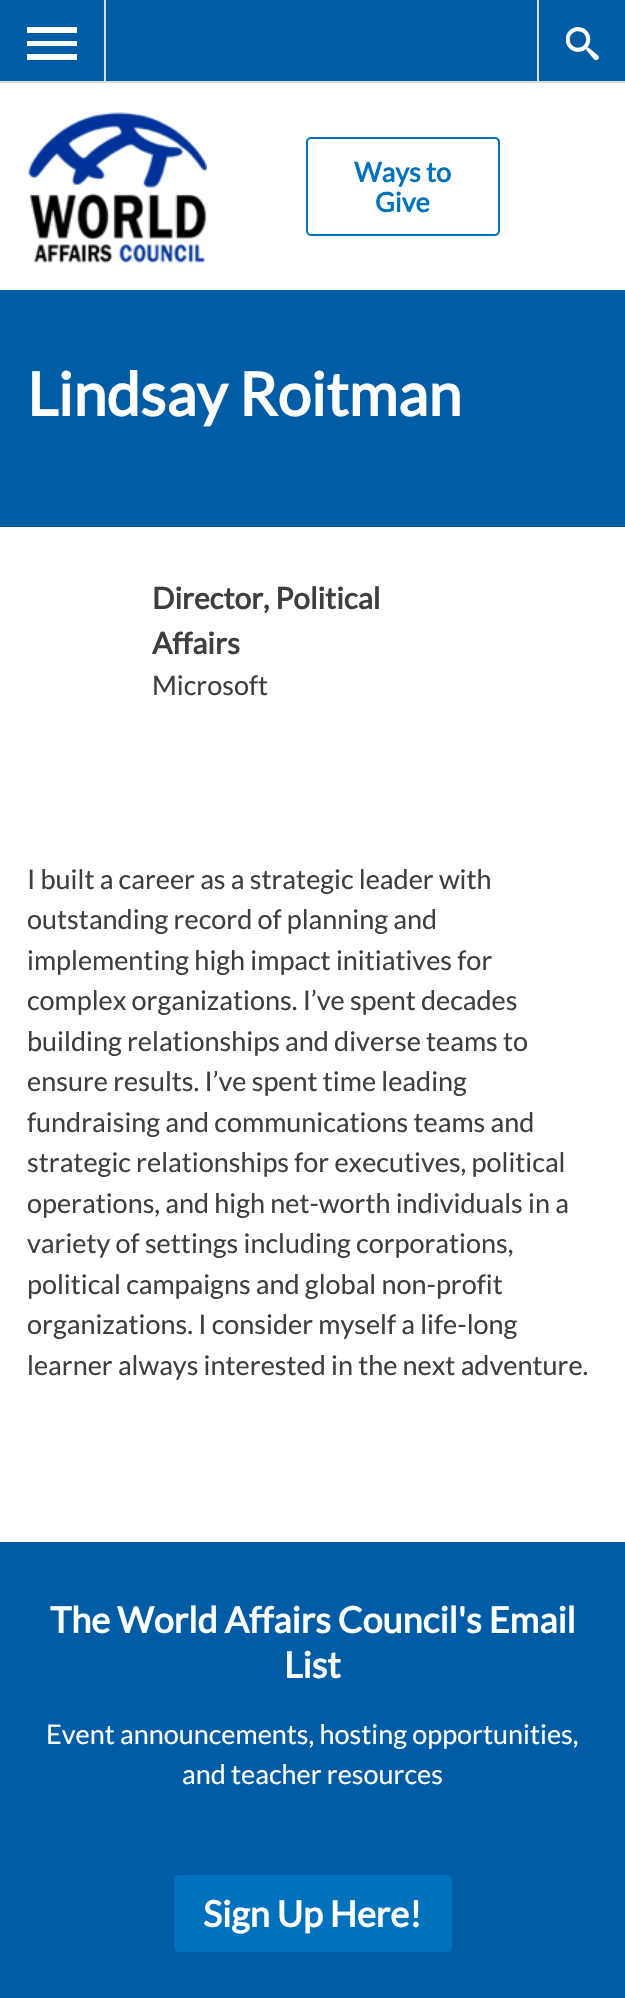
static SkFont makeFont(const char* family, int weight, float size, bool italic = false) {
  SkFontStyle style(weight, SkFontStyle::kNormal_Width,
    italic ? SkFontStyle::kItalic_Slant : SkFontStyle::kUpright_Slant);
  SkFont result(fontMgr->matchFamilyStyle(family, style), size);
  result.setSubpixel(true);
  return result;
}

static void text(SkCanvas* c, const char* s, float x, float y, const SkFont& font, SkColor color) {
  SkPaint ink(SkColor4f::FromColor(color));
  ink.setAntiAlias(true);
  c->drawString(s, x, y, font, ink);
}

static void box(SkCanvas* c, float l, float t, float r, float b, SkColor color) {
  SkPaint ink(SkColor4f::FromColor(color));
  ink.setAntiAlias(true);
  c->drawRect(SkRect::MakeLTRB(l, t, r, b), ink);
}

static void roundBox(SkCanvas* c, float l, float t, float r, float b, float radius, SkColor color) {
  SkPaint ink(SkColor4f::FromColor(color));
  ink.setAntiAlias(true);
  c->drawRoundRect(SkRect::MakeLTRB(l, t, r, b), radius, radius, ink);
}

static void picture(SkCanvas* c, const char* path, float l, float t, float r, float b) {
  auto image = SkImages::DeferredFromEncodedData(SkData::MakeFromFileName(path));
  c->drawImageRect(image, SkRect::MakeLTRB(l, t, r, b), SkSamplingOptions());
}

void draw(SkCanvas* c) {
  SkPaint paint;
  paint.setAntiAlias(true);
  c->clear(0xffffffff);
  box(c, 0, 0, 625, 81, 0xff005ca4);
  box(c, 0, 81, 625, 83, 0xffdadada);
  box(c, 104, 0, 106, 83, 0xffdadada);
  paint.setColor(0xffffffff);
  c->drawPath(SkPathBuilder().moveTo(27, 60).lineTo(77, 60).lineTo(77, 54).lineTo(27, 54).close().moveTo(27, 46).lineTo(77, 46).lineTo(77, 41).lineTo(27, 41).close().moveTo(27, 27).lineTo(27, 33).lineTo(77, 33).lineTo(77, 27).close().detach(), paint);
  box(c, 537, 0, 539, 83, 0xffdadada);
  picture(c, "img_01.png", 566, 27, 599, 60);
  picture(c, "img_02.png", 28, 112, 207, 263);
  paint.setStyle(SkPaint::kStroke_Style);
  paint.setStrokeWidth(2);
  paint.setColor(0xff0072bc);
  c->drawRoundRect(SkRect::MakeLTRB(307, 138, 499, 235), 4, 4, paint);
  SkFont face1 = makeFont("Lato", 700, 27);
  text(c, "Ways to", 354, 182, face1, 0xff0072bc);
  text(c, "Give", 375, 212, face1, 0xff0072bc);
  box(c, 0, 290, 625, 527, 0xff005ca4);
  SkFont face2 = makeFont("Lato", 700, 60);
  text(c, "Lindsay Roitman", 27, 416, face2, 0xffffffff);
  SkFont face3 = makeFont("Lato", 700, 29.75f);
  text(c, "Director, Political", 152, 609, face3, 0xff3e3e3e);
  text(c, "Affairs", 152, 654, face3, 0xff3e3e3e);
  SkFont face4 = makeFont("Lato", 400, 27);
  text(c, "Microsoft", 152, 695, face4, 0xff3e3e3e);
  text(c, "I built a career as a strategic leader with", 27, 889, face4, 0xff3e3e3e);
  text(c, "outstanding record of planning and", 27, 929, face4, 0xff3e3e3e);
  text(c, "implementing high impact initiatives for", 27, 970, face4, 0xff3e3e3e);
  text(c, "complex organizations. I’ve spent decades", 27, 1010, face4, 0xff3e3e3e);
  text(c, "building relationships and diverse teams to", 27, 1051, face4, 0xff3e3e3e);
  text(c, "ensure results. I’ve spent time leading", 27, 1091, face4, 0xff3e3e3e);
  text(c, "fundraising and communications teams and", 27, 1132, face4, 0xff3e3e3e);
  text(c, "strategic relationships for executives, political", 27, 1172, face4, 0xff3e3e3e);
  text(c, "operations, and high net-worth individuals in a", 27, 1213, face4, 0xff3e3e3e);
  text(c, "variety of settings including corporations,", 27, 1253, face4, 0xff3e3e3e);
  text(c, "political campaigns and global non-profit", 27, 1294, face4, 0xff3e3e3e);
  text(c, "organizations. I consider myself a life-long", 27, 1334, face4, 0xff3e3e3e);
  text(c, "learner always interested in the next adventure.", 27, 1375, face4, 0xff3e3e3e);
  box(c, 0, 1542, 625, 1998, 0xff005ca4);
  SkFont face5 = makeFont("Lato", 700, 36);
  text(c, "The World Affairs Council's Email", 50, 1633, face5, 0xffffffff);
  text(c, "List", 284, 1678, face5, 0xffffffff);
  text(c, "Event announcements, hosting opportunities,", 46, 1744, face4, 0xffffffff);
  text(c, "and teacher resources", 182, 1784, face4, 0xffffffff);
  roundBox(c, 174, 1875, 452, 1952, 5, 0xff0071bc);
  text(c, "Sign Up Here!", 203, 1927, face5, 0xffffffff);
}
